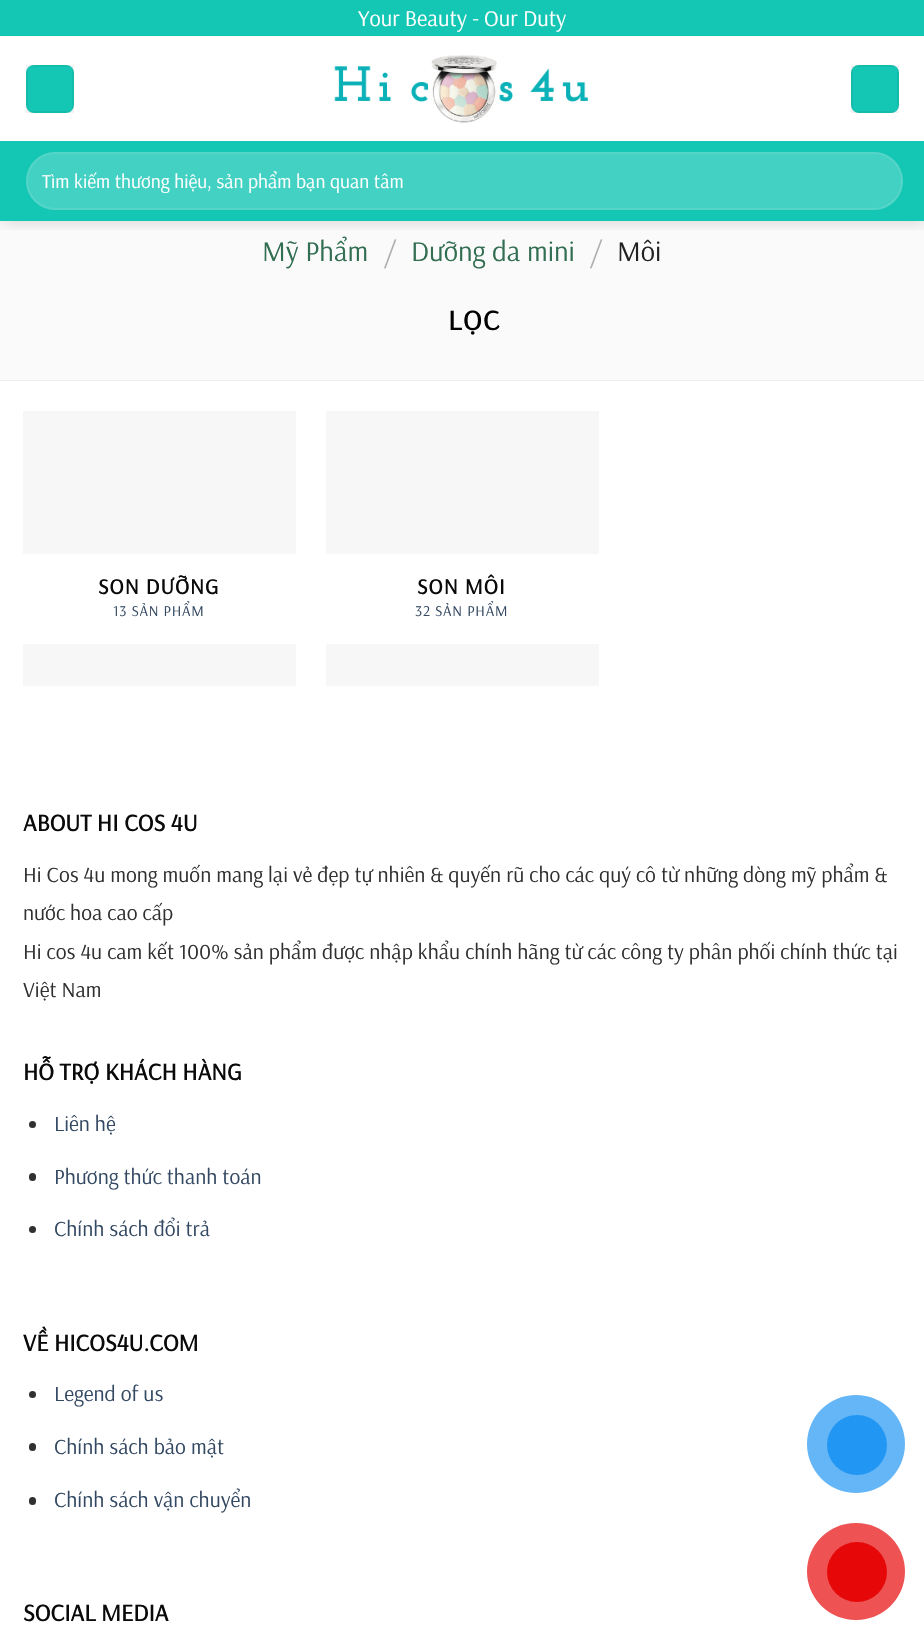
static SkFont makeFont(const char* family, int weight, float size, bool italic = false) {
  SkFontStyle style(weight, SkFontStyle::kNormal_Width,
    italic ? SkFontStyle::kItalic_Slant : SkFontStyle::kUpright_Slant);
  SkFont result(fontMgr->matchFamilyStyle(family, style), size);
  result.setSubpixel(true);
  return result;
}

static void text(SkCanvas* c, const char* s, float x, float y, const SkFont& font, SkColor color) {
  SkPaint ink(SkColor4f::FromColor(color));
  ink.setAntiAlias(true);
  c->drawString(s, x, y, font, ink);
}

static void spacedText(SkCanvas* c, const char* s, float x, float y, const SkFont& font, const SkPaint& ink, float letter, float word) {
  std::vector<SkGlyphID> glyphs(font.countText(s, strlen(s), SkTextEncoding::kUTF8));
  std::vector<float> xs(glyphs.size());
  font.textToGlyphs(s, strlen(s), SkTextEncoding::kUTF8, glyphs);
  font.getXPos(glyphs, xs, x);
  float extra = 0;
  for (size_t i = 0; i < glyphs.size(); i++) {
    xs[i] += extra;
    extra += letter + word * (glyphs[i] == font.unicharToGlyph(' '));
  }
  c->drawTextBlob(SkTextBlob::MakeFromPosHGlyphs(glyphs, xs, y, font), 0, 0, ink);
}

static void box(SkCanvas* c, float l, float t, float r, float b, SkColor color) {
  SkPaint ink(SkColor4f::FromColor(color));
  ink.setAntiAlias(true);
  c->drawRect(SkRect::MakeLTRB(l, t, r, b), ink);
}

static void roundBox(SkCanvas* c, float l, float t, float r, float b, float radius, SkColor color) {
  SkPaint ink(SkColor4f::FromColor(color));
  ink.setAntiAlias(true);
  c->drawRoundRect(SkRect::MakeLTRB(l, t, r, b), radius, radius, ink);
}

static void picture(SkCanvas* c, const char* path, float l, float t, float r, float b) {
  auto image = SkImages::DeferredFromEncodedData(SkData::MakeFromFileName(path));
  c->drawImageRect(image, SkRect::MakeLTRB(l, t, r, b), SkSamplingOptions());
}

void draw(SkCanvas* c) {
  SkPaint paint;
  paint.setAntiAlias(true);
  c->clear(0xffffffff);
  box(c, 0, 221, 924, 380, 0xfffafafa);
  c->save();
  c->clipRect(SkRect::MakeLTRB(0, 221, 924, 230));
  paint.setColor(0x26000000);
  paint.setMaskFilter(SkMaskFilter::MakeBlur(kNormal_SkBlurStyle, 7.5f));
  c->drawRect(SkRect::MakeLTRB(2, 2, 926, 222), paint);
  paint.setMaskFilter(nullptr);
  c->restore();
  box(c, 0, 0, 924, 36, 0xff14c6b4);
  SkFont face1 = makeFont("Arsenal", 400, 22.5f);
  text(c, "Your Beauty - Our Duty", 358, 26, face1, 0xffffffff);
  roundBox(c, 26, 65, 74, 113, 8, 0xff14c6b4);
  paint.setStyle(SkPaint::kStroke_Style);
  paint.setStrokeWidth(2);
  paint.setColor(0x0d000000);
  c->drawRect(SkRect::MakeLTRB(27, 66, 73, 112), paint);
  picture(c, "img_01.png", 334, 55, 589, 123);
  roundBox(c, 851, 65, 899, 113, 8, 0xff14c6b4);
  c->drawRect(SkRect::MakeLTRB(852, 66, 898, 112), paint);
  box(c, 0, 141, 924, 221, 0xff14c6b4);
  roundBox(c, 26, 152, 903, 210, 29, 0xff43d1c3);
  paint.setColor(0x17ffffff);
  c->drawRoundRect(SkRect::MakeLTRB(27, 153, 902, 209), 28, 28, paint);
  SkFont face2 = makeFont("Arsenal", 400, 19.5f);
  text(c, "Tìm kiếm thương hiệu, sản phẩm bạn quan tâm", 42, 188, face2, 0xffffffff);
  box(c, 0, 380, 924, 381, 0xffeeeeee);
  SkFont face3 = makeFont("Arsenal", 400, 28.5f);
  text(c, "Mỹ Phẩm", 262, 261, face3, 0xff326e51);
  text(c, "/", 384, 261, face3, 0xffaeaeae);
  text(c, "Dưỡng da mini", 411, 261, face3, 0xff326e51);
  text(c, "/", 590, 261, face3, 0xffaeaeae);
  text(c, "Môi", 617, 261, face3, 0xff222222);
  SkFont face4 = makeFont("Arsenal", 700, 28.5f);
  paint.setStyle(SkPaint::kFill_Style);
  paint.setColor(0xff000000);
  spacedText(c, "LỌC", 448, 330, face4, paint, 1.5f, 0);
  box(c, 23, 411, 296, 686, 0xfff7f7f7);
  box(c, 23, 554, 296, 644, 0xffffffff);
  SkFont face5 = makeFont("Arsenal", 700, 21.6f);
  paint.setColor(0xff0a0a0a);
  spacedText(c, "SON DƯỠNG", 98, 594, face5, paint, 1, 0);
  SkFont face6 = makeFont("Arsenal", 400, 15);
  paint.setColor(0xff334862);
  spacedText(c, "13 SẢN PHẨM", 113, 616, face6, paint, 0.75f, 0);
  box(c, 326, 411, 599, 686, 0xfff7f7f7);
  box(c, 326, 554, 599, 644, 0xffffffff);
  paint.setColor(0xff0a0a0a);
  spacedText(c, "SON MÔI", 417, 594, face5, paint, 1, 0);
  paint.setColor(0xff334862);
  spacedText(c, "32 SẢN PHẨM", 415, 616, face6, paint, 0.75f, 0);
  SkFont face7 = makeFont("Arsenal", 700, 24);
  text(c, "ABOUT HI COS 4U", 23, 831, face7, 0xff0a0a0a);
  SkFont face8 = makeFont("Arsenal", 400, 21.6f);
  text(c, "Hi Cos 4u mong muốn mang lại vẻ đẹp tự nhiên & quyến rũ cho các quý cô từ những dòng mỹ phẩm &", 23, 882, face8, 0xff303030);
  text(c, "nước hoa cao cấp", 23, 920, face8, 0xff303030);
  text(c, "Hi cos 4u cam kết 100% sản phẩm được nhập khẩu chính hãng từ các công ty phân phối chính thức tại", 23, 959, face8, 0xff303030);
  text(c, "Việt Nam", 23, 997, face8, 0xff303030);
  text(c, "HỖ TRỢ KHÁCH HÀNG", 23, 1080, face7, 0xff0a0a0a);
  paint.setColor(0xff303030);
  c->drawCircle(32.5f, 1124.5f, 3.5f, paint);
  text(c, "Liên hệ", 54, 1131, face8, 0xff334862);
  roundBox(c, 29, 1173, 36, 1181, 3.5f, 0xff303030);
  text(c, "Phương thức thanh toán", 54, 1184, face8, 0xff334862);
  c->drawCircle(32.5f, 1229.5f, 3.5f, paint);
  text(c, "Chính sách đổi trả", 54, 1236, face8, 0xff334862);
  text(c, "VỀ HICOS4U.COM", 23, 1351, face7, 0xff0a0a0a);
  c->drawCircle(32.5f, 1394.5f, 3.5f, paint);
  text(c, "Legend of us", 54, 1401, face8, 0xff334862);
  roundBox(c, 29, 1443, 36, 1451, 3.5f, 0xff303030);
  text(c, "Chính sách bảo mật", 54, 1454, face8, 0xff334862);
  roundBox(c, 29, 1497, 36, 1505, 3.5f, 0xff303030);
  text(c, "Chính sách vận chuyển", 54, 1507, face8, 0xff334862);
  text(c, "SOCIAL MEDIA", 23, 1621, face7, 0xff0a0a0a);
  paint.setColor(0xff64b6f7);
  c->drawCircle(856, 1444, 49, paint);
  paint.setColor(0xff2196f3);
  c->drawCircle(857, 1445, 30, paint);
  roundBox(c, 807, 1523, 905, 1620, 48.5f, 0xffee5252);
  paint.setColor(0xffe60808);
  c->drawCircle(857, 1572, 30, paint);
}
